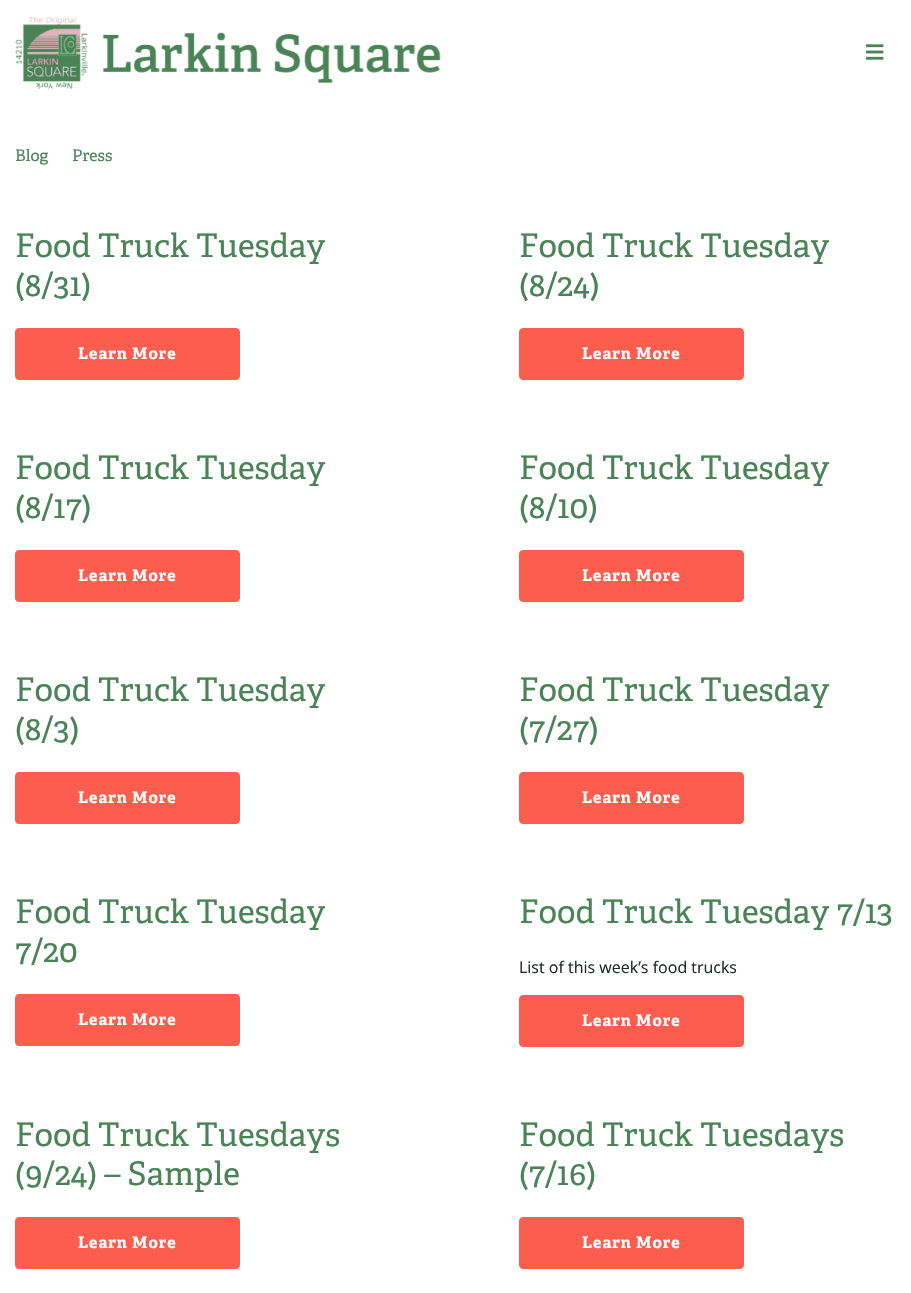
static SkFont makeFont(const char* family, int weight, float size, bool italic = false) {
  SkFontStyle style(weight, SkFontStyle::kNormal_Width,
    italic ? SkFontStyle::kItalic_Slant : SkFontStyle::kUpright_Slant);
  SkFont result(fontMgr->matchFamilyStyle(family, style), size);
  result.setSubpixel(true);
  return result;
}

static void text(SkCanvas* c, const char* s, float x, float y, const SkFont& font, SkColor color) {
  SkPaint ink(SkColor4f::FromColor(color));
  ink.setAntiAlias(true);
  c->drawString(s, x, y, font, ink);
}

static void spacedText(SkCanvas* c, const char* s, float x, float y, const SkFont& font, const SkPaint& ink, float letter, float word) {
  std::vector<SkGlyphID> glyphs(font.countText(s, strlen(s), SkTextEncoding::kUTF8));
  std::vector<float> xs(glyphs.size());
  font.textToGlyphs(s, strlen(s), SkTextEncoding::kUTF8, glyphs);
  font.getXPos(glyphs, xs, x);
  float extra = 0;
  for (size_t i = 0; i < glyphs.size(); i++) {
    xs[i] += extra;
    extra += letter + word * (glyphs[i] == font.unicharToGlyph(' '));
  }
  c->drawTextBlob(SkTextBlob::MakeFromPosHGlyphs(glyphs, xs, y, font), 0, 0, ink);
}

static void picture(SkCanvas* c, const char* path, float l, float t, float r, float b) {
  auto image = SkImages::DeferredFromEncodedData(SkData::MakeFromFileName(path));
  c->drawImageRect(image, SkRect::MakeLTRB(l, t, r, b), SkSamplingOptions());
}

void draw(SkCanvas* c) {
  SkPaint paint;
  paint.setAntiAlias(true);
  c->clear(0xffffffff);
  picture(c, "img_01.png", 15, 16, 441, 89);
  picture(c, "img_02.png", 866, 44, 884, 60);
  SkFont face1 = makeFont("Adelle", 400, 16);
  text(c, "Blog", 15, 161, face1, 0xff498356);
  text(c, "Press", 72, 161, face1, 0xff498356);
  SkFont face2 = makeFont("Adelle", 400, 32.5f);
  text(c, "Food Truck Tuesday", 15, 257, face2, 0xff498356);
  text(c, "(8/31)", 15, 296, face2, 0xff498356);
  paint.setColor(0xfffd5d4e);
  c->drawRoundRect(SkRect::MakeLTRB(15.5f, 328.5f, 239.5f, 379.5f), 3.5f, 3.5f, paint);
  paint.setStyle(SkPaint::kStroke_Style);
  paint.setStrokeWidth(1);
  c->drawRoundRect(SkRect::MakeLTRB(15.5f, 328.5f, 239.5f, 379.5f), 3.5f, 3.5f, paint);
  SkFont face3 = makeFont("Adelle", 700, 16);
  paint.setStyle(SkPaint::kFill_Style);
  paint.setColor(0xffffffff);
  spacedText(c, "Learn More", 78, 359, face3, paint, 1, 0);
  text(c, "Food Truck Tuesday", 519, 257, face2, 0xff498356);
  text(c, "(8/24)", 519, 296, face2, 0xff498356);
  paint.setColor(0xfffd5d4e);
  c->drawRoundRect(SkRect::MakeLTRB(519.5f, 328.5f, 743.5f, 379.5f), 3.5f, 3.5f, paint);
  paint.setStyle(SkPaint::kStroke_Style);
  c->drawRoundRect(SkRect::MakeLTRB(519.5f, 328.5f, 743.5f, 379.5f), 3.5f, 3.5f, paint);
  paint.setStyle(SkPaint::kFill_Style);
  paint.setColor(0xffffffff);
  spacedText(c, "Learn More", 582, 359, face3, paint, 1, 0);
  text(c, "Food Truck Tuesday", 15, 479, face2, 0xff498356);
  text(c, "(8/17)", 15, 518, face2, 0xff498356);
  paint.setColor(0xfffd5d4e);
  c->drawRoundRect(SkRect::MakeLTRB(15.5f, 550.5f, 239.5f, 601.5f), 3.5f, 3.5f, paint);
  paint.setStyle(SkPaint::kStroke_Style);
  c->drawRoundRect(SkRect::MakeLTRB(15.5f, 550.5f, 239.5f, 601.5f), 3.5f, 3.5f, paint);
  paint.setStyle(SkPaint::kFill_Style);
  paint.setColor(0xffffffff);
  spacedText(c, "Learn More", 78, 581, face3, paint, 1, 0);
  text(c, "Food Truck Tuesday", 519, 479, face2, 0xff498356);
  text(c, "(8/10)", 519, 518, face2, 0xff498356);
  paint.setColor(0xfffd5d4e);
  c->drawRoundRect(SkRect::MakeLTRB(519.5f, 550.5f, 743.5f, 601.5f), 3.5f, 3.5f, paint);
  paint.setStyle(SkPaint::kStroke_Style);
  c->drawRoundRect(SkRect::MakeLTRB(519.5f, 550.5f, 743.5f, 601.5f), 3.5f, 3.5f, paint);
  paint.setStyle(SkPaint::kFill_Style);
  paint.setColor(0xffffffff);
  spacedText(c, "Learn More", 582, 581, face3, paint, 1, 0);
  text(c, "Food Truck Tuesday", 15, 701, face2, 0xff498356);
  text(c, "(8/3)", 15, 740, face2, 0xff498356);
  paint.setColor(0xfffd5d4e);
  c->drawRoundRect(SkRect::MakeLTRB(15.5f, 772.5f, 239.5f, 823.5f), 3.5f, 3.5f, paint);
  paint.setStyle(SkPaint::kStroke_Style);
  c->drawRoundRect(SkRect::MakeLTRB(15.5f, 772.5f, 239.5f, 823.5f), 3.5f, 3.5f, paint);
  paint.setStyle(SkPaint::kFill_Style);
  paint.setColor(0xffffffff);
  spacedText(c, "Learn More", 78, 803, face3, paint, 1, 0);
  text(c, "Food Truck Tuesday", 519, 701, face2, 0xff498356);
  text(c, "(7/27)", 519, 740, face2, 0xff498356);
  paint.setColor(0xfffd5d4e);
  c->drawRoundRect(SkRect::MakeLTRB(519.5f, 772.5f, 743.5f, 823.5f), 3.5f, 3.5f, paint);
  paint.setStyle(SkPaint::kStroke_Style);
  c->drawRoundRect(SkRect::MakeLTRB(519.5f, 772.5f, 743.5f, 823.5f), 3.5f, 3.5f, paint);
  paint.setStyle(SkPaint::kFill_Style);
  paint.setColor(0xffffffff);
  spacedText(c, "Learn More", 582, 803, face3, paint, 1, 0);
  text(c, "Food Truck Tuesday", 15, 923, face2, 0xff498356);
  text(c, "7/20", 15, 962, face2, 0xff498356);
  paint.setColor(0xfffd5d4e);
  c->drawRoundRect(SkRect::MakeLTRB(15.5f, 994.5f, 239.5f, 1045.5f), 3.5f, 3.5f, paint);
  paint.setStyle(SkPaint::kStroke_Style);
  c->drawRoundRect(SkRect::MakeLTRB(15.5f, 994.5f, 239.5f, 1045.5f), 3.5f, 3.5f, paint);
  paint.setStyle(SkPaint::kFill_Style);
  paint.setColor(0xffffffff);
  spacedText(c, "Learn More", 78, 1025, face3, paint, 1, 0);
  text(c, "Food Truck Tuesday 7/13", 519, 923, face2, 0xff498356);
  SkFont face4 = makeFont("Open Sans", 400, 16);
  text(c, "List of this week’s food trucks", 519, 973, face4, 0xff212529);
  paint.setColor(0xfffd5d4e);
  c->drawRoundRect(SkRect::MakeLTRB(519.5f, 995.5f, 743.5f, 1046.5f), 3.5f, 3.5f, paint);
  paint.setStyle(SkPaint::kStroke_Style);
  c->drawRoundRect(SkRect::MakeLTRB(519.5f, 995.5f, 743.5f, 1046.5f), 3.5f, 3.5f, paint);
  paint.setStyle(SkPaint::kFill_Style);
  paint.setColor(0xffffffff);
  spacedText(c, "Learn More", 582, 1026, face3, paint, 1, 0);
  text(c, "Food Truck Tuesdays", 15, 1146, face2, 0xff498356);
  text(c, "(9/24) – Sample", 15, 1185, face2, 0xff498356);
  paint.setColor(0xfffd5d4e);
  c->drawRoundRect(SkRect::MakeLTRB(15.5f, 1217.5f, 239.5f, 1268.5f), 3.5f, 3.5f, paint);
  paint.setStyle(SkPaint::kStroke_Style);
  c->drawRoundRect(SkRect::MakeLTRB(15.5f, 1217.5f, 239.5f, 1268.5f), 3.5f, 3.5f, paint);
  paint.setStyle(SkPaint::kFill_Style);
  paint.setColor(0xffffffff);
  spacedText(c, "Learn More", 78, 1248, face3, paint, 1, 0);
  text(c, "Food Truck Tuesdays", 519, 1146, face2, 0xff498356);
  text(c, "(7/16)", 519, 1185, face2, 0xff498356);
  paint.setColor(0xfffd5d4e);
  c->drawRoundRect(SkRect::MakeLTRB(519.5f, 1217.5f, 743.5f, 1268.5f), 3.5f, 3.5f, paint);
  paint.setStyle(SkPaint::kStroke_Style);
  c->drawRoundRect(SkRect::MakeLTRB(519.5f, 1217.5f, 743.5f, 1268.5f), 3.5f, 3.5f, paint);
  paint.setStyle(SkPaint::kFill_Style);
  paint.setColor(0xffffffff);
  spacedText(c, "Learn More", 582, 1248, face3, paint, 1, 0);
}
